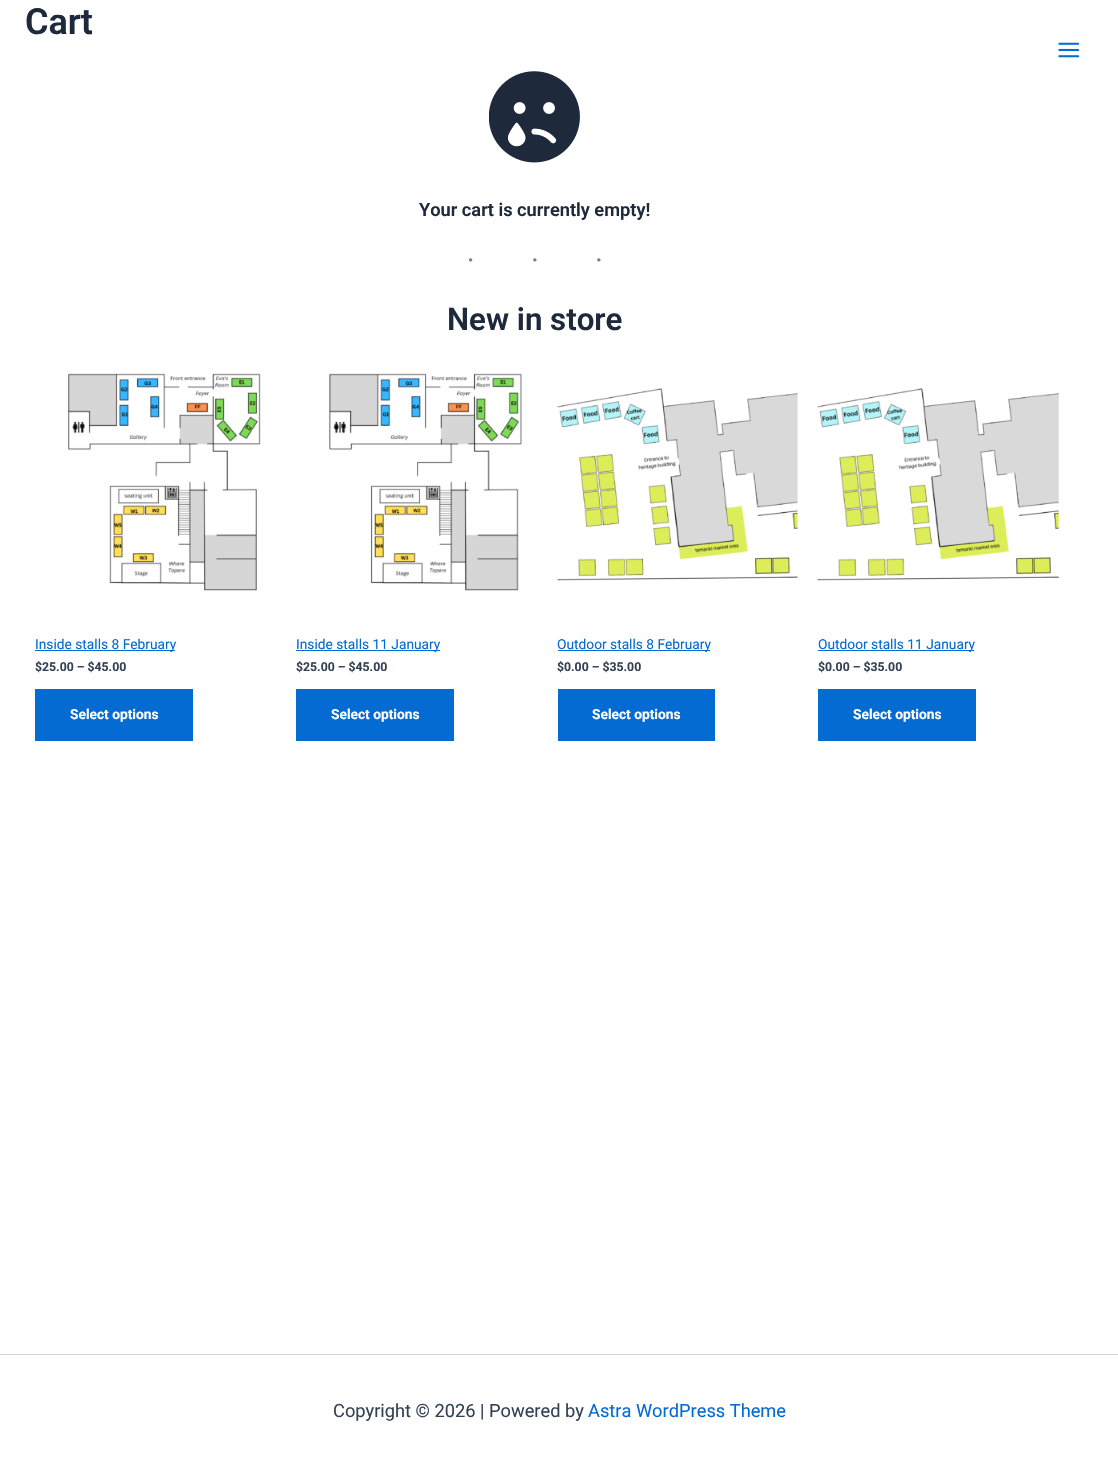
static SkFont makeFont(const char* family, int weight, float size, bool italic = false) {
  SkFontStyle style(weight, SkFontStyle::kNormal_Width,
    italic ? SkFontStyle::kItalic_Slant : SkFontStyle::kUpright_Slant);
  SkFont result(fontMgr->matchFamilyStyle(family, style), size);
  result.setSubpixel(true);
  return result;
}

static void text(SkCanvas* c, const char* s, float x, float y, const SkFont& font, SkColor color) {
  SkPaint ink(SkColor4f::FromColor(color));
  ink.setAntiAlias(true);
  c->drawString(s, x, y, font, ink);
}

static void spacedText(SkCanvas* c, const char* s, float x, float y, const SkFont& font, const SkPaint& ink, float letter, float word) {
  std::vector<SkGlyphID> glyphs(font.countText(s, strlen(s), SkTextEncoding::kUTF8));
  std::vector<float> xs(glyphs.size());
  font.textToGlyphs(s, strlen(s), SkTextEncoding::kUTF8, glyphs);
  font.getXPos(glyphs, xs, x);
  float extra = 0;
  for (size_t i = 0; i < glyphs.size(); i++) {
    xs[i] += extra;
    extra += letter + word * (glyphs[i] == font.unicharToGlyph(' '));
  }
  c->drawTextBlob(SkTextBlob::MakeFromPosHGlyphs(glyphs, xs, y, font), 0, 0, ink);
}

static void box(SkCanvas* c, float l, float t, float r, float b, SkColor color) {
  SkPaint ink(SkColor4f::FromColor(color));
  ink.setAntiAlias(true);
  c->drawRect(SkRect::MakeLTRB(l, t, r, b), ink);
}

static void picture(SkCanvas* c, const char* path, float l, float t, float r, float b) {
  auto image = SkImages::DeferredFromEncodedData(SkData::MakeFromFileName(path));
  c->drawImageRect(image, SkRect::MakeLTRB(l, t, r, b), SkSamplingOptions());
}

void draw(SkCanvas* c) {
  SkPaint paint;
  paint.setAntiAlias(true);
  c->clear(0xffffffff);
  SkFont face1 = makeFont("Roboto", 600, 36);
  text(c, "Cart", 25, 34, face1, 0xff1e293b);
  picture(c, "img_01.png", 489, 71, 580, 163);
  SkFont face2 = makeFont("Roboto", 600, 18.25f);
  text(c, "Your cart is currently empty!", 419, 216, face2, 0xff1e293b);
  SkFont face3 = makeFont("Liberation Serif", 400, 27.5f);
  paint.setColor(0xff808080);
  spacedText(c, "···", 466, 269, face3, paint, 55, 0);
  SkFont face4 = makeFont("Roboto", 600, 31.25f);
  text(c, "New in store", 447, 330, face4, 0xff1e293b);
  picture(c, "img_02.png", 68, 373, 261, 591);
  box(c, 35, 650, 175, 651, 0xff046bd2);
  SkFont face5 = makeFont("Roboto", 400, 13.75f);
  text(c, "Inside stalls 8 February", 35, 649, face5, 0xff046bd2);
  SkFont face6 = makeFont("Roboto", 700, 12.25f);
  text(c, "$25.00 – $45.00", 35, 671, face6, 0xff334155);
  box(c, 35, 689, 193, 741, 0xff046bd2);
  SkFont face7 = makeFont("Roboto", 700, 13.75f);
  text(c, "Select options", 70, 719, face7, 0xffffffff);
  picture(c, "img_03.png", 329, 373, 522, 591);
  box(c, 296, 650, 440, 651, 0xff046bd2);
  text(c, "Inside stalls 11 January", 296, 649, face5, 0xff046bd2);
  text(c, "$25.00 – $45.00", 296, 671, face6, 0xff334155);
  box(c, 296, 689, 454, 741, 0xff046bd2);
  text(c, "Select options", 331, 719, face7, 0xffffffff);
  picture(c, "img_04.png", 557, 388, 798, 581);
  box(c, 558, 650, 710, 651, 0xff046bd2);
  text(c, "Outdoor stalls 8 February", 557, 649, face5, 0xff046bd2);
  text(c, "$0.00 – $35.00", 557, 671, face6, 0xff334155);
  box(c, 558, 689, 715, 741, 0xff046bd2);
  text(c, "Select options", 592, 719, face7, 0xffffffff);
  picture(c, "img_05.png", 817, 388, 1059, 581);
  box(c, 818, 650, 974, 651, 0xff046bd2);
  text(c, "Outdoor stalls 11 January", 818, 649, face5, 0xff046bd2);
  text(c, "$0.00 – $35.00", 818, 671, face6, 0xff334155);
  box(c, 818, 689, 976, 741, 0xff046bd2);
  text(c, "Select options", 853, 719, face7, 0xffffffff);
  picture(c, "img_06.png", 1058, 42, 1080, 58);
  box(c, 0, 1354, 1118, 1355, 0xffd1d5db);
  SkFont face8 = makeFont("Roboto", 400, 18.25f);
  text(c, "Copyright © 2026 | Powered by", 333, 1417, face8, 0xff334155);
  text(c, "Astra WordPress Theme", 588, 1417, face8, 0xff046bd2);
}
